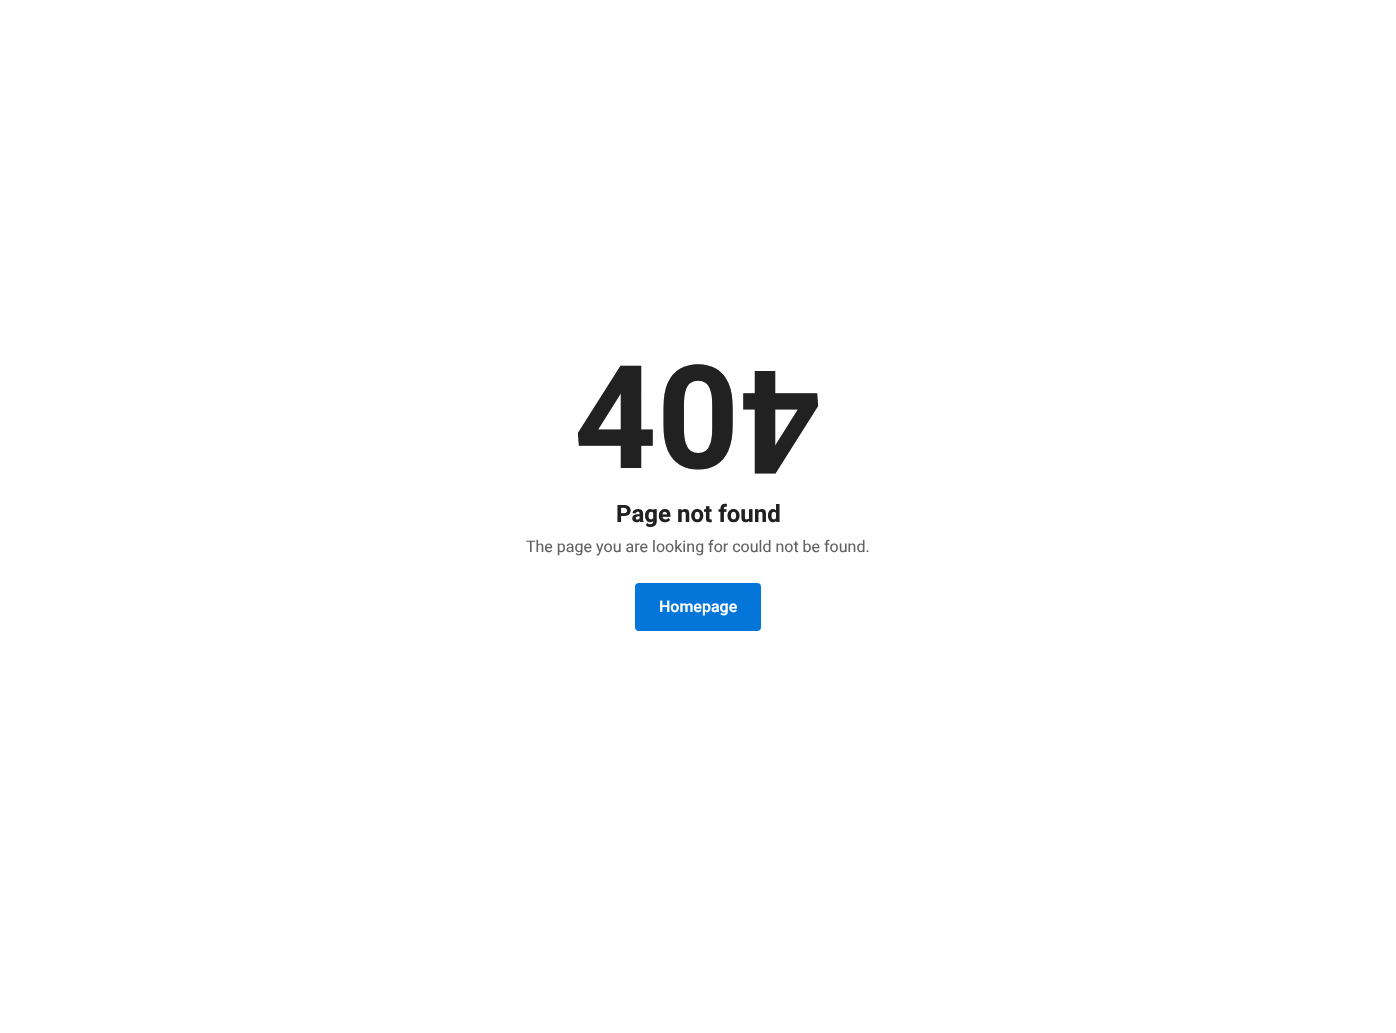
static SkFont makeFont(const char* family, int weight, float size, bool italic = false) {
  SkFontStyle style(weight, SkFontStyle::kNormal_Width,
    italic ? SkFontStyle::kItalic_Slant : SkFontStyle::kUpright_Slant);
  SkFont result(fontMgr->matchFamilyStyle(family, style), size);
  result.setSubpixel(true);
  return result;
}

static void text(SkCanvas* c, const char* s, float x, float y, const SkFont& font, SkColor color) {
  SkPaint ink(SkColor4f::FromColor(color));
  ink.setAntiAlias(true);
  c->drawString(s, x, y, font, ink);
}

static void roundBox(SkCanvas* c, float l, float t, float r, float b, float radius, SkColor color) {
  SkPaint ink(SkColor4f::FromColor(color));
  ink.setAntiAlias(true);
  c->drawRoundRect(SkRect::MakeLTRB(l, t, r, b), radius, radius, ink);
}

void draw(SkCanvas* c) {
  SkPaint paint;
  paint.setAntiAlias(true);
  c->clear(0xffffffff);
  SkFont face1 = makeFont("Heebo", 700, 144);
  text(c, "40", 574, 468, face1, 0xff212121);
  c->save();
  c->rotate(180, 822, 371);
  text(c, "4", 822, 371, face1, 0xff212121);
  c->restore();
  SkFont face2 = makeFont("Heebo", 700, 24);
  text(c, "Page not found", 616, 522, face2, 0xff212121);
  SkFont face3 = makeFont("Heebo", 400, 16);
  text(c, "The page you are looking for could not be found.", 526, 552, face3, 0xff616161);
  roundBox(c, 635, 583, 761, 631, 4, 0xff0476d9);
  SkFont face4 = makeFont("Heebo", 600, 16);
  text(c, "Homepage", 659, 612, face4, 0xffffffff);
}
